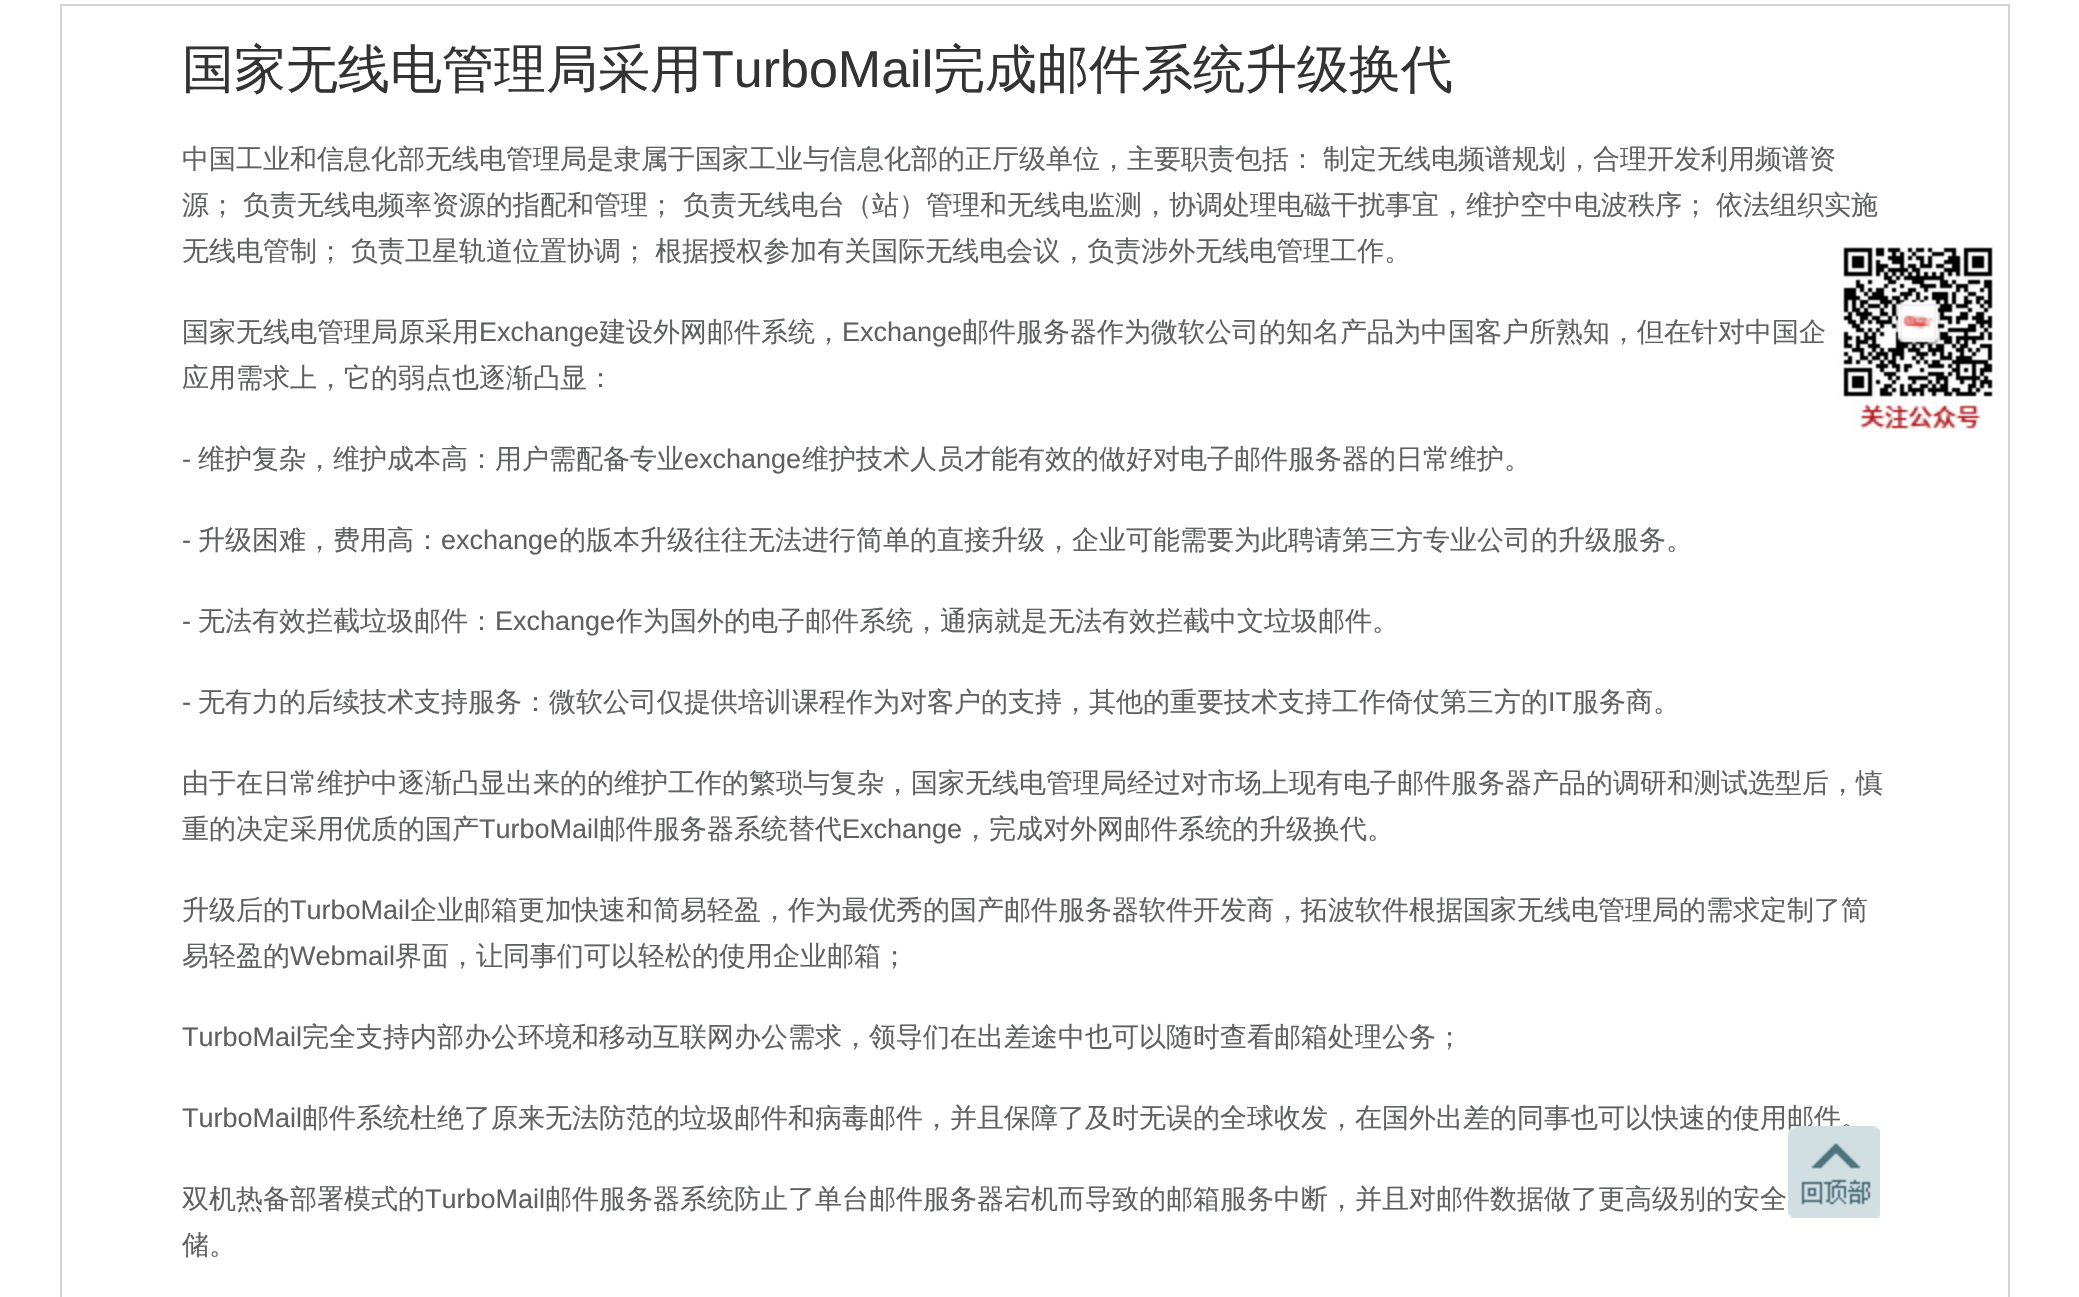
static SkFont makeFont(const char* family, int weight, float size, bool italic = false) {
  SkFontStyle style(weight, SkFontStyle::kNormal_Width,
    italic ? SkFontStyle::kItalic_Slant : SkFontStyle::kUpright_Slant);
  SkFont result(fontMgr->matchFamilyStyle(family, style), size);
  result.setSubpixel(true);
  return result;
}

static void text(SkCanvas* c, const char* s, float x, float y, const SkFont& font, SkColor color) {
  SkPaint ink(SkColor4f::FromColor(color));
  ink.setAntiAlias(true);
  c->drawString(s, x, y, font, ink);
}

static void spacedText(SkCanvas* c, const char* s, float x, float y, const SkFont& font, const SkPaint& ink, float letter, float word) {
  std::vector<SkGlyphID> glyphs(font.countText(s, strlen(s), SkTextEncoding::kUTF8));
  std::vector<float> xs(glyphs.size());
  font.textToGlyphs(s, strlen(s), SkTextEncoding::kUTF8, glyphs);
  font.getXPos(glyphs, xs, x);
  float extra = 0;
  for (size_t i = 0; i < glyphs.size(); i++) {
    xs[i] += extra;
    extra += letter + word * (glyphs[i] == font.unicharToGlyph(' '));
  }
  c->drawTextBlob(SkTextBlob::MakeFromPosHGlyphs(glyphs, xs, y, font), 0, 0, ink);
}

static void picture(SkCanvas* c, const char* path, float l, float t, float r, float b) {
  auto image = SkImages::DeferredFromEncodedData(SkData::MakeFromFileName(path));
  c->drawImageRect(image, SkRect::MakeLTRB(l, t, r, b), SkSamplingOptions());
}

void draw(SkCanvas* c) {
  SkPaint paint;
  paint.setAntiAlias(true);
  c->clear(0xffffffff);
  paint.setStyle(SkPaint::kStroke_Style);
  paint.setStrokeWidth(2);
  paint.setColor(0xffd5d4d4);
  c->drawRect(SkRect::MakeLTRB(61, 5, 2009, 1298), paint);
  SkFont face1 = makeFont("WenQuanYi Zen Hei", 500, 52);
  text(c, "国家无线电管理局采用", 182, 87, face1, 0xff333333);
  SkFont face2 = makeFont("Liberation Sans", 400, 52);
  text(c, "TurboMail", 702, 87, face2, 0xff333333);
  text(c, "完成邮件系统升级换代", 933, 87, face1, 0xff333333);
  SkFont face3 = makeFont("WenQuanYi Zen Hei", 500, 27);
  paint.setStyle(SkPaint::kFill_Style);
  paint.setColor(0xff5f6060);
  spacedText(c, "中国工业和信息化部无线电管理局是隶属于国家工业与信息化部的正厅级单位，主要职责包括： 制定无线电频谱规划，合理开发利用频谱资", 182, 168, face3, paint, 0, -1);
  spacedText(c, "源； 负责无线电频率资源的指配和管理；", 182, 214, face3, paint, 0, -1);
  spacedText(c, "负责无线电台（站）管理和无线电监测，协调处理电磁干扰事宜，维护空中电波秩序； 依法组织实施", 683, 214, face3, paint, 0, -1);
  spacedText(c, "无线电管制； 负责卫星轨道位置协调； 根据授权参加有关国际无线电会议，负责涉外无线电管理工作。", 182, 260, face3, paint, 0, -1);
  text(c, "国家无线电管理局原采用", 182, 341, face3, 0xff5f6060);
  SkFont face4 = makeFont("Liberation Sans", 400, 27);
  text(c, "Exchange", 479, 341, face4, 0xff5f6060);
  text(c, "建设外网邮件系统，", 599, 341, face3, 0xff5f6060);
  text(c, "Exchange", 842, 341, face4, 0xff5f6060);
  text(c, "邮件服务器作为微软公司的知名产品为中国客户所熟知，但在针对中国企", 962, 341, face3, 0xff5f6060);
  text(c, "应用需求上，它的弱点也逐渐凸显：", 182, 387, face3, 0xff5f6060);
  text(c, "-", 182, 468, face4, 0xff5f6060);
  text(c, "维护复杂，维护成本高：用户需配备专业", 198, 468, face3, 0xff5f6060);
  text(c, "exchange", 684, 468, face4, 0xff5f6060);
  text(c, "维护技术人员才能有效的做好对电子邮件服务器的日常维护。", 802, 468, face3, 0xff5f6060);
  text(c, "-", 182, 549, face4, 0xff5f6060);
  text(c, "升级困难，费用高：", 198, 549, face3, 0xff5f6060);
  text(c, "exchange", 441, 549, face4, 0xff5f6060);
  text(c, "的版本升级往往无法进行简单的直接升级，企业可能需要为此聘请第三方专业公司的升级服务。", 559, 549, face3, 0xff5f6060);
  text(c, "-", 182, 630, face4, 0xff5f6060);
  text(c, "无法有效拦截垃圾邮件：", 198, 630, face3, 0xff5f6060);
  text(c, "Exchange", 495, 630, face4, 0xff5f6060);
  text(c, "作为国外的电子邮件系统，通病就是无法有效拦截中文垃圾邮件。", 616, 630, face3, 0xff5f6060);
  text(c, "-", 182, 711, face4, 0xff5f6060);
  text(c, "无有力的后续技术支持服务：微软公司仅提供培训课程作为对客户的支持，其他的重要技术支持工作倚仗第三方的", 198, 711, face3, 0xff5f6060);
  text(c, "IT", 1548, 711, face4, 0xff5f6060);
  text(c, "服务商。", 1572, 711, face3, 0xff5f6060);
  text(c, "由于在日常维护中逐渐凸显出来的的维护工作的繁琐与复杂，国家无线电管理局经过对市场上现有电子邮件服务器产品的调研和测试选型后，慎", 182, 792, face3, 0xff5f6060);
  text(c, "重的决定采用优质的国产", 182, 838, face3, 0xff5f6060);
  text(c, "TurboMail", 479, 838, face4, 0xff5f6060);
  text(c, "邮件服务器系统替代", 599, 838, face3, 0xff5f6060);
  text(c, "Exchange", 842, 838, face4, 0xff5f6060);
  text(c, "，完成对外网邮件系统的升级换代。", 962, 838, face3, 0xff5f6060);
  text(c, "升级后的", 182, 919, face3, 0xff5f6060);
  text(c, "TurboMail", 290, 919, face4, 0xff5f6060);
  text(c, "企业邮箱更加快速和简易轻盈，作为最优秀的国产邮件服务器软件开发商，拓波软件根据国家无线电管理局的需求定制了简", 410, 919, face3, 0xff5f6060);
  text(c, "易轻盈的", 182, 965, face3, 0xff5f6060);
  text(c, "Webmail", 290, 965, face4, 0xff5f6060);
  text(c, "界面，让同事们可以轻松的使用企业邮箱；", 395, 965, face3, 0xff5f6060);
  text(c, "TurboMail", 182, 1046, face4, 0xff5f6060);
  text(c, "完全支持内部办公环境和移动互联网办公需求，领导们在出差途中也可以随时查看邮箱处理公务；", 302, 1046, face3, 0xff5f6060);
  text(c, "TurboMail", 182, 1127, face4, 0xff5f6060);
  text(c, "邮件系统杜绝了原来无法防范的垃圾邮件和病毒邮件，并且保障了及时无误的全球收发，在国外出差的同事也可以快速的使用邮件。", 302, 1127, face3, 0xff5f6060);
  text(c, "双机热备部署模式的", 182, 1208, face3, 0xff5f6060);
  text(c, "TurboMail", 425, 1208, face4, 0xff5f6060);
  text(c, "邮件服务器系统防止了单台邮件服务器宕机而导致的邮箱服务中断，并且对邮件数据做了更高级别的安全", 545, 1208, face3, 0xff5f6060);
  text(c, "储。", 182, 1254, face3, 0xff5f6060);
  picture(c, "img_01.png", 1836, 247, 1993, 432);
  picture(c, "img_02.png", 1788, 1126, 1880, 1218);
}
